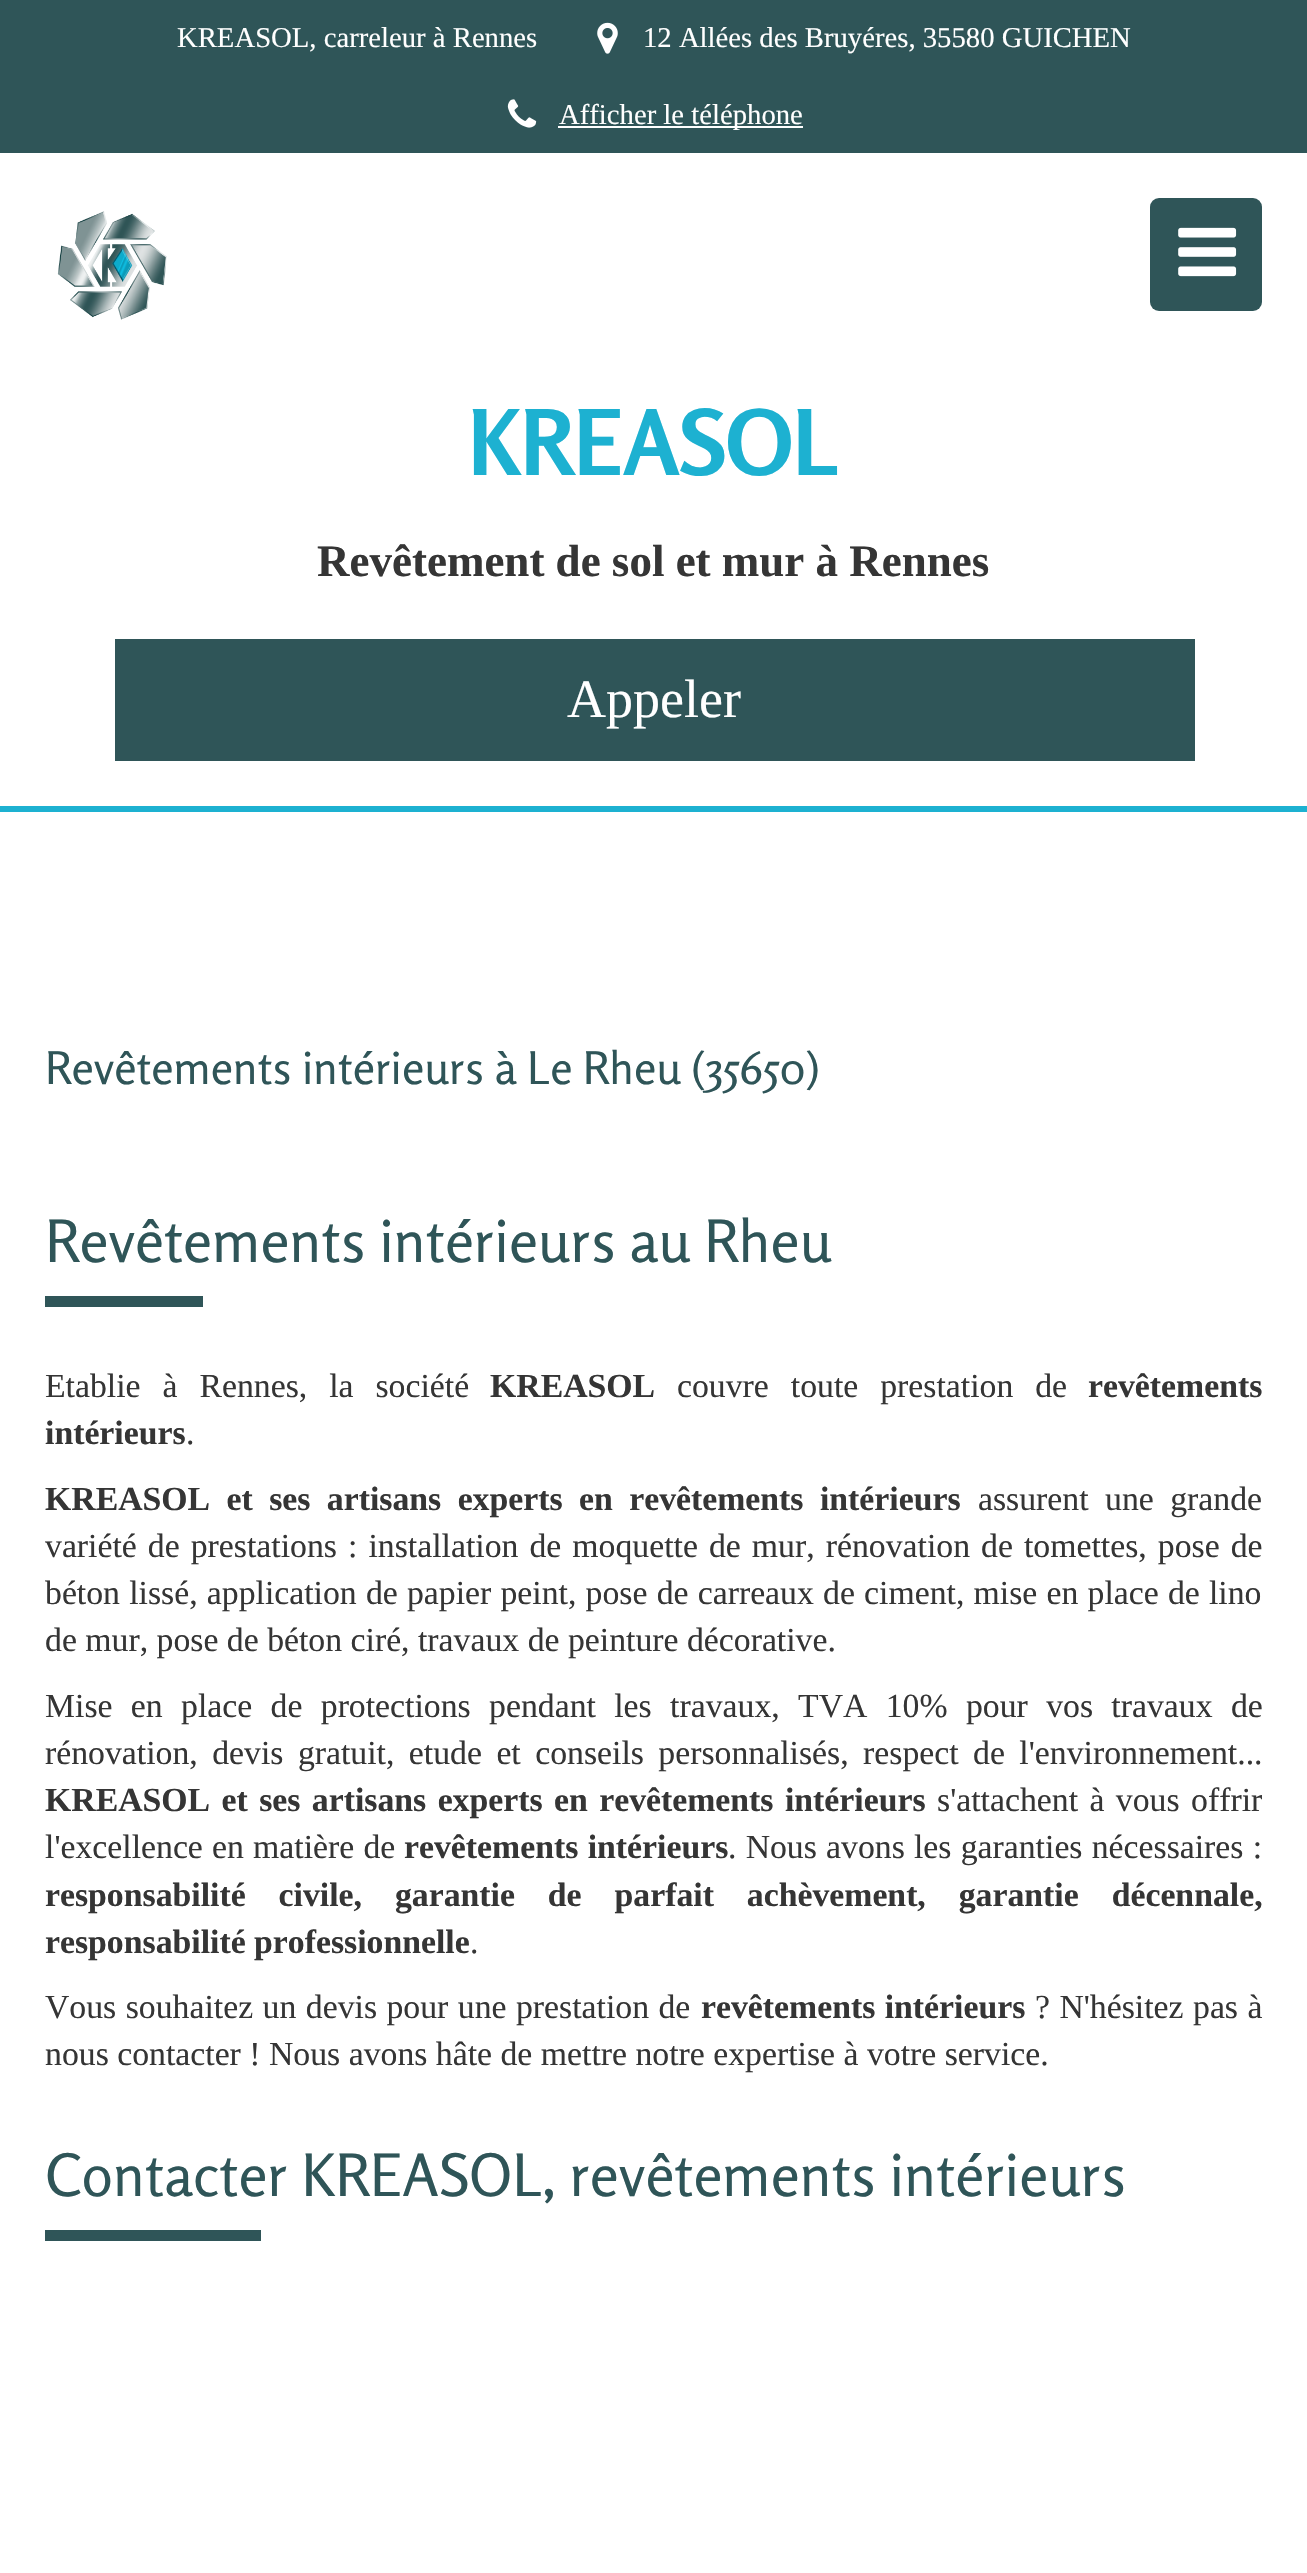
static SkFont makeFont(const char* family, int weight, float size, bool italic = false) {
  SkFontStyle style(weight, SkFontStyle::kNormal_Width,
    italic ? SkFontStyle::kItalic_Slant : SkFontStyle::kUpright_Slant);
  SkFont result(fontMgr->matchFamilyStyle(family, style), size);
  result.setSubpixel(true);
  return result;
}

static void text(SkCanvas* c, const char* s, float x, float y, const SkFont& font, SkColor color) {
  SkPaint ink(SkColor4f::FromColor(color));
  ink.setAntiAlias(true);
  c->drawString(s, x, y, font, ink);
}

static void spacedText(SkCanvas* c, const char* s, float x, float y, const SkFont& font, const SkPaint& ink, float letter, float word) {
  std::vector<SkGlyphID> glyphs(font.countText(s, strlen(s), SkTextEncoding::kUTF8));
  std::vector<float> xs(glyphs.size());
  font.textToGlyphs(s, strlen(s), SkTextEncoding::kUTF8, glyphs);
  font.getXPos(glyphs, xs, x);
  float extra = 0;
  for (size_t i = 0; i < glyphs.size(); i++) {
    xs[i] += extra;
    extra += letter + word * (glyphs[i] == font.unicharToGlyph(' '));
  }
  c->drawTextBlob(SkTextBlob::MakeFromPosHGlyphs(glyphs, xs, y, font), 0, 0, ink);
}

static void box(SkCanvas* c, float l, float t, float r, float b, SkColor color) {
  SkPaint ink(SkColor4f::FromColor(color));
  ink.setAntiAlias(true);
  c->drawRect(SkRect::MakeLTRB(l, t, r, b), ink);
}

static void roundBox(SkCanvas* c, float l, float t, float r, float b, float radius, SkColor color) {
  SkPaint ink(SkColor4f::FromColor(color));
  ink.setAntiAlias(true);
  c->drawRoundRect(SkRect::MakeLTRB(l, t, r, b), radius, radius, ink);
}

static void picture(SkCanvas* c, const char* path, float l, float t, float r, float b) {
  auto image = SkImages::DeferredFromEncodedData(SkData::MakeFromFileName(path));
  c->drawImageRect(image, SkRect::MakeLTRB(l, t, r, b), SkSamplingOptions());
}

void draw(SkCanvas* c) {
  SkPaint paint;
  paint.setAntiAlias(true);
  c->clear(0xffffffff);
  box(c, 0, 0, 1307, 153, 0xff2f5558);
  SkFont face1 = makeFont("Liberation Serif", 400, 28.7f);
  text(c, "KREASOL, carreleur à Rennes", 177, 47, face1, 0xffffffff);
  picture(c, "img_01.png", 597, 22, 618, 54);
  text(c, "12 Allées des Bruyéres, 35580 GUICHEN", 643, 47, face1, 0xffffffff);
  picture(c, "img_02.png", 507, 99, 537, 128);
  box(c, 558, 126, 803, 128, 0xffffffff);
  text(c, "Afficher le téléphone", 559, 124, face1, 0xffffffff);
  box(c, 0, 806, 1307, 812, 0xff1db1d1);
  picture(c, "img_03.png", 57, 211, 167, 320);
  roundBox(c, 1150, 198, 1262, 311, 9, 0xff2f5558);
  picture(c, "img_04.png", 1178, 227, 1237, 277);
  SkFont face2 = makeFont("Rosario", 700, 90);
  text(c, "KREASOL", 468, 475, face2, 0xff1db1d1);
  SkFont face3 = makeFont("Liberation Serif", 700, 45);
  text(c, "Revêtement de sol et mur à Rennes", 317, 576, face3, 0xff353535);
  box(c, 115, 639, 1195, 761, 0xff2f5558);
  SkFont face4 = makeFont("Liberation Serif", 400, 54);
  text(c, "Appeler", 567, 717, face4, 0xffffffff);
  SkFont face5 = makeFont("Rosario", 400, 45);
  text(c, "Revêtements intérieurs à Le Rheu (35650)", 45, 1084, face5, 0xff2f5558);
  SkFont face6 = makeFont("Rosario", 400, 58.5f);
  text(c, "Revêtements intérieurs au Rheu", 45, 1262, face6, 0xff2f5558);
  box(c, 45, 1296, 203, 1307, 0xff2f5558);
  SkFont face7 = makeFont("Liberation Serif", 400, 33.75f);
  paint.setColor(0xff353535);
  spacedText(c, "Etablie à Rennes, la société", 45, 1397, face7, paint, 0, 13.5f);
  SkFont face8 = makeFont("Liberation Serif", 700, 33.75f);
  text(c, "KREASOL", 490, 1397, face8, 0xff353535);
  spacedText(c, "couvre toute prestation de", 677, 1397, face7, paint, 0, 13.5f);
  text(c, "revêtements", 1088, 1397, face8, 0xff353535);
  text(c, "intérieurs", 45, 1444, face8, 0xff353535);
  text(c, ".", 186, 1444, face7, 0xff353535);
  spacedText(c, "KREASOL et ses artisans experts en revêtements intérieurs", 45, 1510, face8, paint, 0, 8);
  spacedText(c, "assurent une grande", 978, 1510, face7, paint, 0, 8);
  spacedText(c, "variété de prestations : installation de moquette de mur, rénovation de tomettes, pose de", 45, 1557, face7, paint, 0, 2.6f);
  spacedText(c, "béton lissé, application de papier peint, pose de carreaux de ciment, mise en place de lino", 45, 1604, face7, paint, 0, 0.75f);
  text(c, "de mur, pose de béton ciré, travaux de peinture décorative.", 45, 1651, face7, 0xff353535);
  spacedText(c, "Mise en place de protections pendant les travaux, TVA 10% pour vos travaux de", 45, 1717, face7, paint, 0, 9.9f);
  spacedText(c, "rénovation, devis gratuit, etude et conseils personnalisés, respect de l'environnement...", 45, 1764, face7, paint, 0, 6);
  spacedText(c, "KREASOL et ses artisans experts en revêtements intérieurs", 45, 1811, face8, paint, 0, 3);
  spacedText(c, "s'attachent à vous offrir", 937, 1811, face7, paint, 0, 3);
  spacedText(c, "l'excellence en matière de", 45, 1858, face7, paint, 0, 0.75f);
  spacedText(c, "revêtements intérieurs", 404, 1858, face8, paint, 0, 1);
  spacedText(c, ". Nous avons les garanties nécessaires :", 728, 1858, face7, paint, 0, 0.75f);
  spacedText(c, "responsabilité civile, garantie de parfait achèvement, garantie décennale,", 45, 1906, face8, paint, 0, 24.5f);
  text(c, "responsabilité professionnelle", 45, 1953, face8, 0xff353535);
  text(c, ".", 470, 1953, face7, 0xff353535);
  spacedText(c, "Vous souhaitez un devis pour une prestation de", 45, 2018, face7, paint, 0, 1);
  spacedText(c, "revêtements intérieurs", 701, 2018, face8, paint, 0, 1);
  spacedText(c, "? N'hésitez pas à", 1035, 2018, face7, paint, 0, 1);
  text(c, "nous contacter ! Nous avons hâte de mettre notre expertise à votre service.", 45, 2065, face7, 0xff353535);
  text(c, "Contacter KREASOL, revêtements intérieurs", 45, 2196, face6, 0xff2f5558);
  box(c, 45, 2230, 261, 2241, 0xff2f5558);
}
